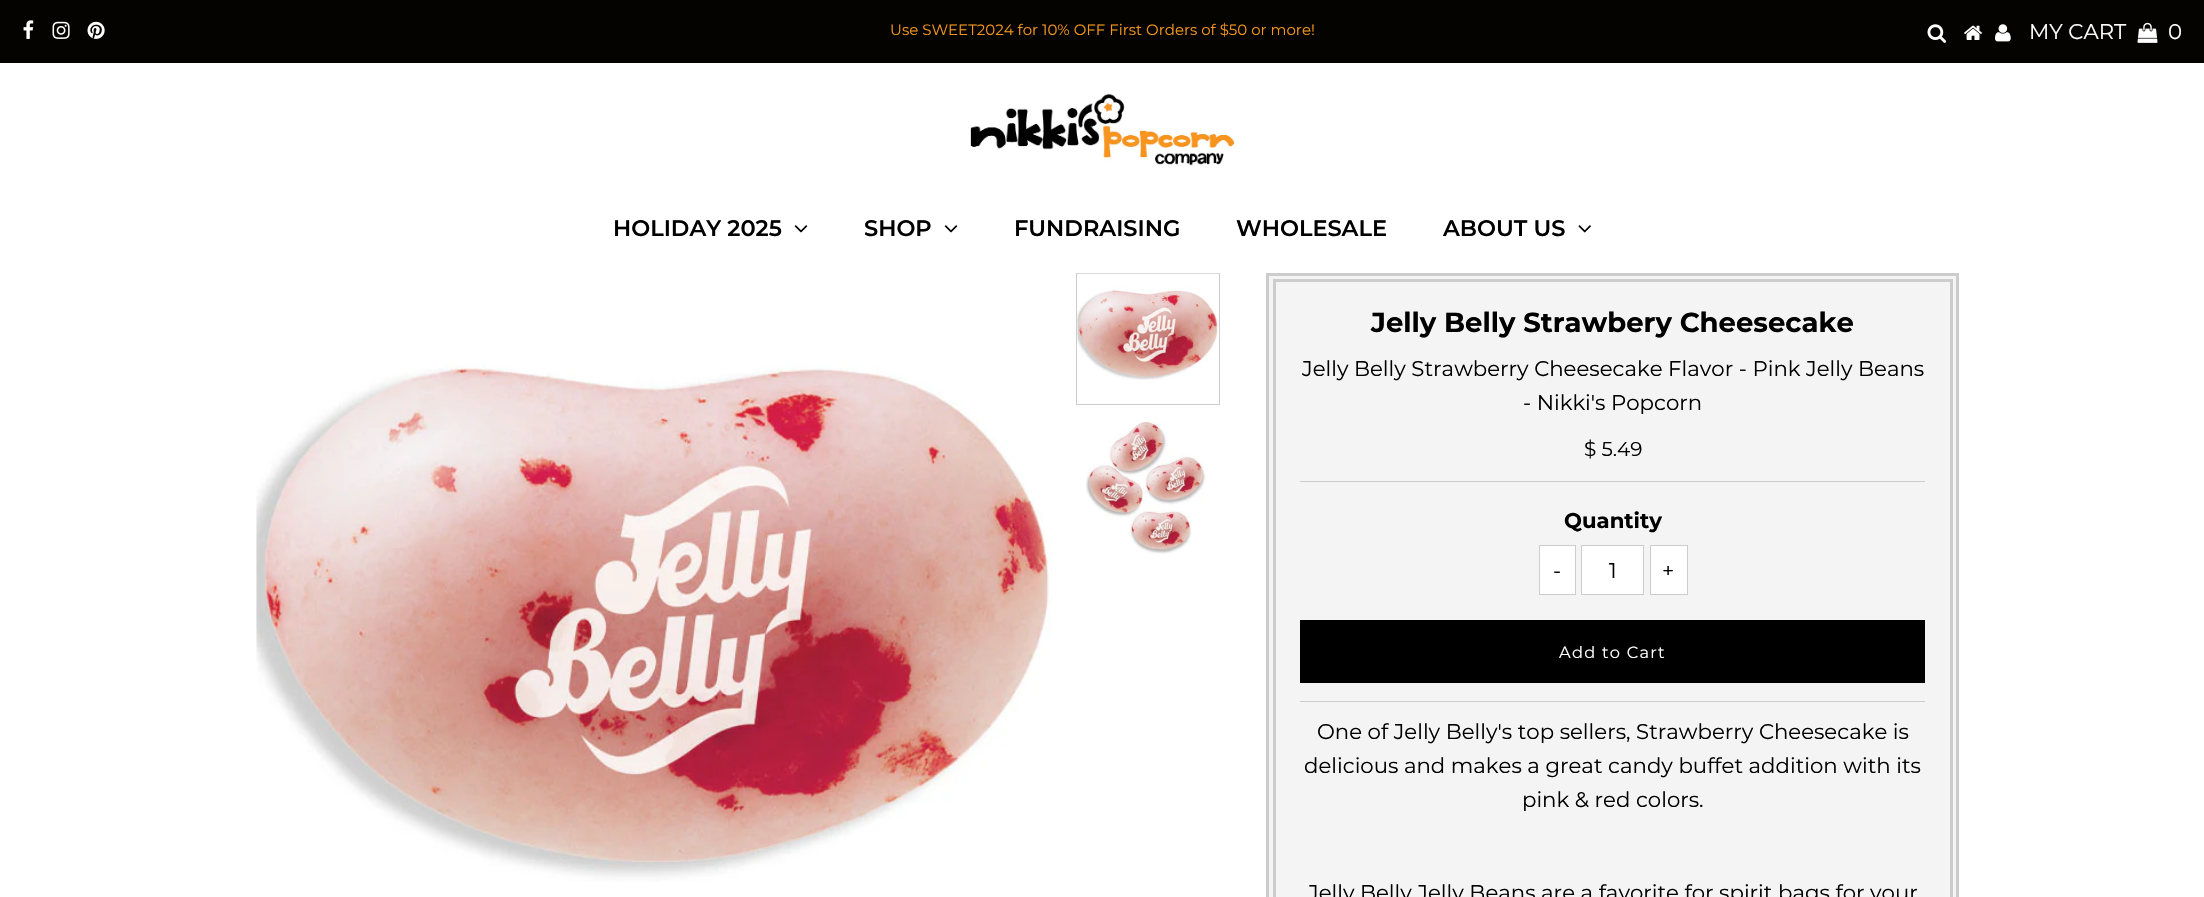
static SkFont makeFont(const char* family, int weight, float size, bool italic = false) {
  SkFontStyle style(weight, SkFontStyle::kNormal_Width,
    italic ? SkFontStyle::kItalic_Slant : SkFontStyle::kUpright_Slant);
  SkFont result(fontMgr->matchFamilyStyle(family, style), size);
  result.setSubpixel(true);
  return result;
}

static void text(SkCanvas* c, const char* s, float x, float y, const SkFont& font, SkColor color) {
  SkPaint ink(SkColor4f::FromColor(color));
  ink.setAntiAlias(true);
  c->drawString(s, x, y, font, ink);
}

static void spacedText(SkCanvas* c, const char* s, float x, float y, const SkFont& font, const SkPaint& ink, float letter, float word) {
  std::vector<SkGlyphID> glyphs(font.countText(s, strlen(s), SkTextEncoding::kUTF8));
  std::vector<float> xs(glyphs.size());
  font.textToGlyphs(s, strlen(s), SkTextEncoding::kUTF8, glyphs);
  font.getXPos(glyphs, xs, x);
  float extra = 0;
  for (size_t i = 0; i < glyphs.size(); i++) {
    xs[i] += extra;
    extra += letter + word * (glyphs[i] == font.unicharToGlyph(' '));
  }
  c->drawTextBlob(SkTextBlob::MakeFromPosHGlyphs(glyphs, xs, y, font), 0, 0, ink);
}

static void box(SkCanvas* c, float l, float t, float r, float b, SkColor color) {
  SkPaint ink(SkColor4f::FromColor(color));
  ink.setAntiAlias(true);
  c->drawRect(SkRect::MakeLTRB(l, t, r, b), ink);
}

static void picture(SkCanvas* c, const char* path, float l, float t, float r, float b) {
  auto image = SkImages::DeferredFromEncodedData(SkData::MakeFromFileName(path));
  c->drawImageRect(image, SkRect::MakeLTRB(l, t, r, b), SkSamplingOptions());
}

void draw(SkCanvas* c) {
  SkPaint paint;
  paint.setAntiAlias(true);
  c->clear(0xffffffff);
  box(c, 0, 0, 2204, 63, 0xff050300);
  picture(c, "img_01.png", 23, 20, 34, 39);
  picture(c, "img_02.png", 52, 21, 70, 39);
  picture(c, "img_03.png", 87, 21, 105, 39);
  SkFont face1 = makeFont("Montserrat", 400, 15);
  text(c, "Use SWEET2024 for 10% OFF First Orders of $50 or more!", 890, 35, face1, 0xfff3961d);
  picture(c, "img_04.png", 1927, 24, 1947, 43);
  picture(c, "img_05.png", 1964, 25, 1982, 40);
  picture(c, "img_06.png", 1995, 24, 2011, 42);
  SkFont face2 = makeFont("Montserrat", 400, 21.25f);
  text(c, "MY CART", 2029, 39, face2, 0xffffffff);
  picture(c, "img_07.png", 2137, 22, 2158, 43);
  text(c, "0", 2168, 39, face2, 0xffffffff);
  picture(c, "img_08.png", 970, 94, 1237, 166);
  SkFont face3 = makeFont("Montserrat", 600, 22.5f);
  text(c, "HOLIDAY 2025", 613, 236, face3, 0xff000000);
  picture(c, "img_09.png", 794, 225, 808, 233);
  text(c, "SHOP", 864, 236, face3, 0xff000000);
  picture(c, "img_09.png", 944, 225, 958, 233);
  text(c, "FUNDRAISING", 1014, 236, face3, 0xff000000);
  text(c, "WHOLESALE", 1236, 236, face3, 0xff000000);
  text(c, "ABOUT US", 1443, 236, face3, 0xff000000);
  picture(c, "img_10.png", 1578, 225, 1591, 233);
  picture(c, "img_11.png", 256, 364, 1052, 882);
  paint.setStyle(SkPaint::kStroke_Style);
  paint.setStrokeWidth(1);
  paint.setColor(0xffcccccc);
  c->drawRect(SkRect::MakeLTRB(1076.5f, 273.5f, 1219.5f, 404.5f), paint);
  picture(c, "img_12.png", 1077, 273, 1219, 380);
  picture(c, "img_13.png", 1086, 421, 1206, 554);
  paint.setStyle(SkPaint::kFill_Style);
  paint.setColor(0xfff4f4f4);
  c->drawRect(SkRect::MakeLTRB(1267.5f, 274.5f, 1957.5f, 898.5f), paint);
  paint.setStyle(SkPaint::kStroke_Style);
  paint.setStrokeWidth(3);
  paint.setColor(0xffcccccc);
  c->drawRect(SkRect::MakeLTRB(1267.5f, 274.5f, 1957.5f, 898.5f), paint);
  c->drawRect(SkRect::MakeLTRB(1274.5f, 280.5f, 1951.5f, 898.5f), paint);
  SkFont face4 = makeFont("Montserrat", 700, 27.5f);
  text(c, "Jelly Belly Strawbery Cheesecake", 1371, 332, face4, 0xff000000);
  text(c, "Jelly Belly Strawberry Cheesecake Flavor - Pink Jelly Beans", 1302, 376, face2, 0xff000000);
  text(c, "- Nikki's Popcorn", 1523, 410, face2, 0xff000000);
  box(c, 1300, 701, 1925, 702, 0xffcccccc);
  box(c, 1300, 481, 1925, 482, 0xffcccccc);
  SkFont face5 = makeFont("Montserrat", 400, 20);
  text(c, "$ 5.49", 1584, 456, face5, 0xff000000);
  SkFont face6 = makeFont("Montserrat", 700, 21.25f);
  text(c, "Quantity", 1564, 528, face6, 0xff000000);
  paint.setStyle(SkPaint::kFill_Style);
  paint.setColor(0xffffffff);
  c->drawRect(SkRect::MakeLTRB(1539.5f, 545.5f, 1575.5f, 594.5f), paint);
  paint.setStyle(SkPaint::kStroke_Style);
  paint.setStrokeWidth(1);
  paint.setColor(0xffcccccc);
  c->drawRect(SkRect::MakeLTRB(1539.5f, 545.5f, 1575.5f, 594.5f), paint);
  text(c, "-", 1553, 578, face2, 0xff000000);
  paint.setStyle(SkPaint::kFill_Style);
  paint.setColor(0xffffffff);
  c->drawRect(SkRect::MakeLTRB(1581.5f, 545.5f, 1643.5f, 594.5f), paint);
  paint.setStyle(SkPaint::kStroke_Style);
  paint.setColor(0xffcccccc);
  c->drawRect(SkRect::MakeLTRB(1581.5f, 545.5f, 1643.5f, 594.5f), paint);
  text(c, "1", 1609, 578, face2, 0xff000000);
  paint.setStyle(SkPaint::kFill_Style);
  paint.setColor(0xffffffff);
  c->drawRect(SkRect::MakeLTRB(1650.5f, 545.5f, 1687.5f, 594.5f), paint);
  paint.setStyle(SkPaint::kStroke_Style);
  paint.setColor(0xffcccccc);
  c->drawRect(SkRect::MakeLTRB(1650.5f, 545.5f, 1687.5f, 594.5f), paint);
  text(c, "+", 1662, 578, face2, 0xff000000);
  box(c, 1300, 620, 1925, 683, 0xff000000);
  SkFont face7 = makeFont("Montserrat", 400, 16.25f);
  paint.setStyle(SkPaint::kFill_Style);
  paint.setColor(0xffffffff);
  spacedText(c, "Add to Cart", 1559, 658, face7, paint, 1.25f, 0);
  text(c, "One of Jelly Belly's top sellers, Strawberry Cheesecake is", 1317, 739, face2, 0xff000000);
  text(c, "delicious and makes a great candy buffet addition with its", 1304, 773, face2, 0xff000000);
  text(c, "pink & red colors.", 1522, 807, face2, 0xff000000);
  text(c, "Jelly Belly Jelly Beans are a favorite for spirit bags for your", 1308, 900, face2, 0xff000000);
}
